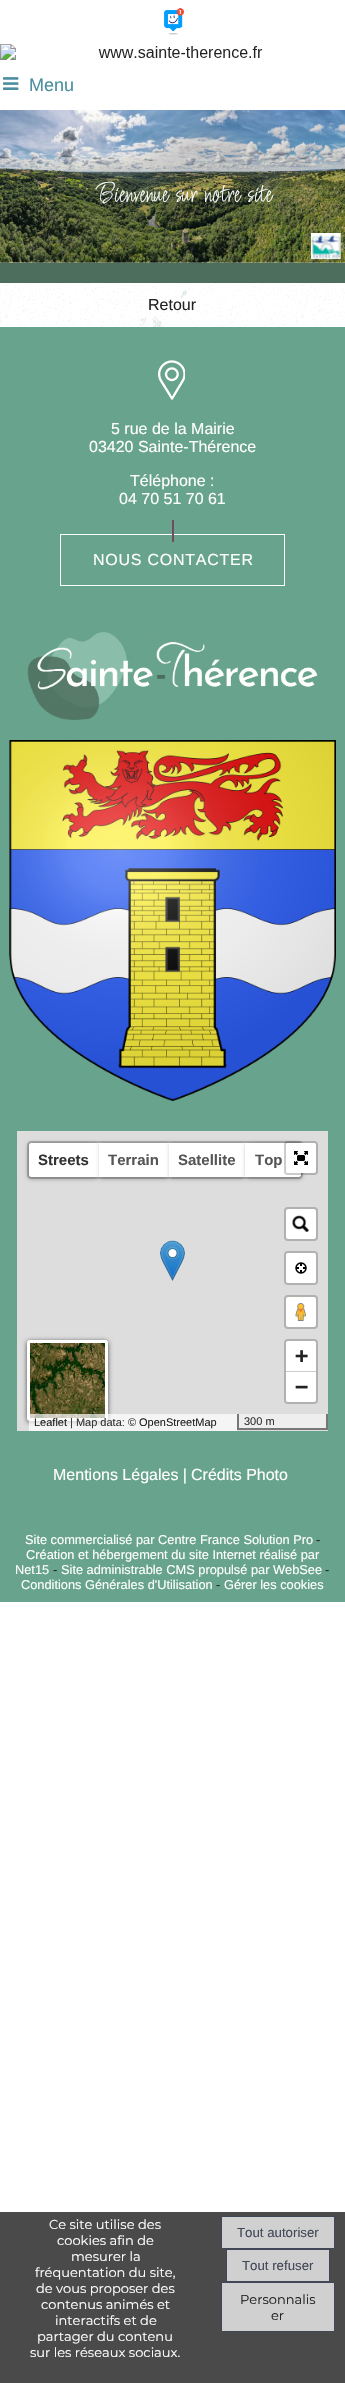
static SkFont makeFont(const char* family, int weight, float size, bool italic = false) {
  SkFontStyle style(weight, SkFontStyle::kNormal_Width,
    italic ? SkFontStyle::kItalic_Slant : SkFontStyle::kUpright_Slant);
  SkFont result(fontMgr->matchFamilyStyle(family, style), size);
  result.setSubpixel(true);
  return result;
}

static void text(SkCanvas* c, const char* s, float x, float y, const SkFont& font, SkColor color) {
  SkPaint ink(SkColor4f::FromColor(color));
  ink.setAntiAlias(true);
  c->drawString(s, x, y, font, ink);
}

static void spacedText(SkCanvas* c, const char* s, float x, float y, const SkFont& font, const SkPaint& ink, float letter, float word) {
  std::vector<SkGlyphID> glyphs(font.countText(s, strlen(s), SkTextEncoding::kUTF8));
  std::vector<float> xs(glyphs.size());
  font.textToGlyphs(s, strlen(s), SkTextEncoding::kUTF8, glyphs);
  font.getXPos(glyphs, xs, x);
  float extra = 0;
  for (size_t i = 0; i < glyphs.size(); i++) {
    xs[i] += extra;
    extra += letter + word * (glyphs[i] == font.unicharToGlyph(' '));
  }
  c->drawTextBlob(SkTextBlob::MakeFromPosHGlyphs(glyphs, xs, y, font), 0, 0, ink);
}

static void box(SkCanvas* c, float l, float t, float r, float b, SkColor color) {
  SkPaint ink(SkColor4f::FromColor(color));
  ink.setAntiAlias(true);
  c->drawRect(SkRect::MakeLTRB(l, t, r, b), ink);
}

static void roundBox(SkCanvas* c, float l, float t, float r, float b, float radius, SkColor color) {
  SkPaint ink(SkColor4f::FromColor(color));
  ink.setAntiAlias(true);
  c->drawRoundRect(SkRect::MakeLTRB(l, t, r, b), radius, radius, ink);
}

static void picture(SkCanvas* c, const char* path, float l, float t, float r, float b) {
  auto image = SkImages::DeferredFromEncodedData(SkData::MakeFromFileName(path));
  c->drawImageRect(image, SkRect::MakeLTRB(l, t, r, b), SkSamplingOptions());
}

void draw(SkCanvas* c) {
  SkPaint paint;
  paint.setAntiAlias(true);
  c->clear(0xffffffff);
  picture(c, "img_01.png", 163, 8, 184, 35);
  picture(c, "img_02.png", 0, 44, 263, 60);
  picture(c, "img_03.png", 3, 77, 19, 90);
  SkFont face1 = makeFont("Liberation Sans", 400, 18);
  text(c, "Menu", 29, 91, face1, 0xff4b8e9f);
  picture(c, "img_04.png", 0, 110, 345, 263);
  SkFont face2 = makeFont("Licorice", 400, 28);
  text(c, "Bienvenue sur notre site", 96, 202, face2, 0xffffffff);
  picture(c, "img_05.png", 311, 233, 341, 259);
  box(c, 0, 263, 345, 283, 0xff4e6e5d);
  picture(c, "img_06.png", 0, 283, 345, 327);
  SkFont face3 = makeFont("Liberation Sans", 400, 16);
  text(c, "Retour", 148, 310, face3, 0xff222222);
  box(c, 0, 327, 345, 1602, 0xff68a38d);
  picture(c, "img_07.png", 158, 360, 185, 400);
  text(c, "5 rue de la Mairie", 111, 434, face3, 0xffffffff);
  text(c, "03420 Sainte-Thérence", 89, 452, face3, 0xffffffff);
  text(c, "Téléphone :", 130, 486, face3, 0xffffffff);
  text(c, "04 70 51 70 61", 119, 504, face3, 0xffffffff);
  paint.setStyle(SkPaint::kStroke_Style);
  paint.setStrokeWidth(1);
  paint.setColor(0xffffffff);
  c->drawRect(SkRect::MakeLTRB(60.5f, 534.5f, 284.5f, 585.5f), paint);
  box(c, 172, 520, 174, 542, 0xff704c5e);
  paint.setStyle(SkPaint::kFill_Style);
  spacedText(c, "NOUS CONTACTER", 93, 565, face3, paint, 0.75f, 0);
  picture(c, "img_08.png", 27, 632, 318, 720);
  picture(c, "img_09.png", 9, 740, 336, 1101);
  box(c, 17, 1131, 328, 1431, 0xffdddddd);
  paint.setColor(0x4d000000);
  paint.setMaskFilter(SkMaskFilter::MakeBlur(kNormal_SkBlurStyle, 2));
  c->drawRoundRect(SkRect::MakeLTRB(28, 1143, 98, 1179), 3, 3, paint);
  paint.setMaskFilter(nullptr);
  paint.setColor(0xffffffff);
  c->drawPath(SkPathBuilder().moveTo(31, 1143).lineTo(99, 1143).lineTo(99, 1177).lineTo(31, 1177).cubicTo(30, 1177, 29, 1176, 29, 1175).lineTo(29, 1145).cubicTo(29, 1144, 30, 1143, 31, 1143).close().detach(), paint);
  paint.setColor(0x33000000);
  c->drawPath(SkPathBuilder(SkPathFillType::kEvenOdd).moveTo(31, 1141).lineTo(99, 1141).lineTo(99, 1179).lineTo(31, 1179).cubicTo(29, 1179, 27, 1177, 27, 1175).lineTo(27, 1145).cubicTo(27, 1143, 29, 1141, 31, 1141).close().moveTo(31, 1143).lineTo(99, 1143).lineTo(99, 1177).lineTo(31, 1177).cubicTo(30, 1177, 29, 1176, 29, 1175).lineTo(29, 1145).cubicTo(29, 1144, 30, 1143, 31, 1143).close().detach(), paint);
  SkFont face4 = makeFont("Liberation Sans", 700, 15);
  text(c, "Streets", 38, 1165, face4, 0xff333333);
  paint.setColor(0x4d000000);
  paint.setMaskFilter(SkMaskFilter::MakeBlur(kNormal_SkBlurStyle, 2));
  c->drawRect(SkRect::MakeLTRB(100, 1143, 168, 1179), paint);
  paint.setMaskFilter(nullptr);
  box(c, 99, 1143, 169, 1177, 0xffffffff);
  box(c, 99, 1141, 169, 1143, 0x33000000);
  box(c, 99, 1177, 169, 1179, 0x33000000);
  text(c, "Terrain", 108, 1165, face4, 0xff565656);
  paint.setMaskFilter(SkMaskFilter::MakeBlur(kNormal_SkBlurStyle, 2));
  c->drawRect(SkRect::MakeLTRB(170, 1143, 244, 1179), paint);
  paint.setMaskFilter(nullptr);
  box(c, 169, 1143, 245, 1177, 0xffffffff);
  box(c, 169, 1141, 245, 1143, 0x33000000);
  box(c, 169, 1177, 245, 1179, 0x33000000);
  text(c, "Satellite", 178, 1165, face4, 0xff565656);
  paint.setMaskFilter(SkMaskFilter::MakeBlur(kNormal_SkBlurStyle, 2));
  c->drawRoundRect(SkRect::MakeLTRB(246, 1143, 302, 1179), 3, 3, paint);
  paint.setMaskFilter(nullptr);
  paint.setColor(0xffffffff);
  c->drawPath(SkPathBuilder().moveTo(245, 1143).lineTo(299, 1143).cubicTo(300, 1143, 301, 1144, 301, 1145).lineTo(301, 1175).cubicTo(301, 1176, 300, 1177, 299, 1177).lineTo(245, 1177).close().detach(), paint);
  paint.setColor(0x33000000);
  c->drawPath(SkPathBuilder(SkPathFillType::kEvenOdd).moveTo(245, 1141).lineTo(299, 1141).cubicTo(301, 1141, 303, 1143, 303, 1145).lineTo(303, 1175).cubicTo(303, 1177, 301, 1179, 299, 1179).lineTo(245, 1179).close().moveTo(245, 1143).lineTo(299, 1143).cubicTo(300, 1143, 301, 1144, 301, 1145).lineTo(301, 1175).cubicTo(301, 1176, 300, 1177, 299, 1177).lineTo(245, 1177).close().detach(), paint);
  text(c, "Top", 255, 1165, face4, 0xff565656);
  paint.setStyle(SkPaint::kStroke_Style);
  paint.setStrokeWidth(2);
  c->drawRoundRect(SkRect::MakeLTRB(285, 1142, 317, 1174), 3, 3, paint);
  roundBox(c, 286, 1143, 316, 1173, 2, 0xffffffff);
  picture(c, "img_10.png", 294, 1151, 308, 1165);
  paint.setStyle(SkPaint::kFill_Style);
  paint.setColor(0xa6000000);
  paint.setMaskFilter(SkMaskFilter::MakeBlur(kNormal_SkBlurStyle, 2.5f));
  c->drawRoundRect(SkRect::MakeLTRB(27, 1341, 108, 1422), 3, 3, paint);
  paint.setMaskFilter(nullptr);
  paint.setStyle(SkPaint::kStroke_Style);
  paint.setStrokeWidth(3);
  paint.setColor(0xffffffff);
  c->drawRoundRect(SkRect::MakeLTRB(28.5f, 1341.5f, 106.5f, 1419.5f), 1.5f, 1.5f, paint);
  picture(c, "img_11.png", 30, 1343, 105, 1418);
  roundBox(c, 286, 1209, 316, 1239, 2, 0xfff8f8f8);
  paint.setStrokeWidth(2);
  paint.setColor(0x33000000);
  c->drawRoundRect(SkRect::MakeLTRB(285, 1208, 317, 1240), 3, 3, paint);
  roundBox(c, 286, 1209, 316, 1239, 4, 0xffffffff);
  picture(c, "img_12.png", 292, 1215, 309, 1232);
  paint.setColor(0xffb1b1b1);
  c->drawRoundRect(SkRect::MakeLTRB(285, 1252, 317, 1284), 3, 3, paint);
  roundBox(c, 286, 1253, 316, 1283, 2, 0xffffffff);
  picture(c, "img_13.png", 295, 1262, 307, 1274);
  roundBox(c, 286, 1297, 316, 1327, 2, 0xffffffff);
  paint.setColor(0x33000000);
  c->drawRoundRect(SkRect::MakeLTRB(285, 1296, 317, 1328), 3, 3, paint);
  picture(c, "img_14.png", 295, 1297, 306, 1321);
  paint.setColor(0xffb1b1b1);
  c->drawRoundRect(SkRect::MakeLTRB(285, 1340, 317, 1403), 3, 3, paint);
  paint.setStyle(SkPaint::kFill_Style);
  paint.setColor(0xffffffff);
  c->drawPath(SkPathBuilder().moveTo(288, 1341).lineTo(314, 1341).cubicTo(315, 1341, 316, 1342, 316, 1343).lineTo(316, 1372).lineTo(286, 1372).lineTo(286, 1343).cubicTo(286, 1342, 287, 1341, 288, 1341).close().detach(), paint);
  box(c, 286, 1371, 316, 1372, 0xffcccccc);
  SkFont face5 = makeFont("DejaVu Sans Mono", 700, 22);
  text(c, "+", 295, 1363, face5, 0xff222222);
  c->drawPath(SkPathBuilder().moveTo(286, 1372).lineTo(316, 1372).lineTo(316, 1400).cubicTo(316, 1401, 315, 1402, 314, 1402).lineTo(288, 1402).cubicTo(287, 1402, 286, 1401, 286, 1400).close().detach(), paint);
  text(c, "−", 295, 1394, face5, 0xff222222);
  box(c, 29, 1414, 222, 1431, 0xb3ffffff);
  SkFont face6 = makeFont("Liberation Sans", 400, 11);
  text(c, "Leaflet", 34, 1426, face6, 0xff222222);
  text(c, "| Map data: ©", 70, 1426, face6, 0xff333333);
  text(c, "OpenStreetMap", 139, 1426, face6, 0xff222222);
  box(c, 222, 1414, 237, 1431, 0xfff5f5f5);
  box(c, 239, 1414, 326, 1428, 0xffeeeeee);
  box(c, 326, 1414, 328, 1430, 0xff777777);
  box(c, 237, 1428, 328, 1430, 0xff777777);
  box(c, 237, 1414, 239, 1430, 0xff777777);
  text(c, "300 m", 244, 1425, face6, 0xff333333);
  picture(c, "img_15.png", 160, 1240, 185, 1281);
  text(c, "Mentions Légales |", 53, 1480, face3, 0xffffffff);
  text(c, "Crédits Photo", 191, 1480, face3, 0xffffffff);
  SkFont face7 = makeFont("Liberation Sans", 400, 12.8f);
  text(c, "Site commercialisé par Centre France Solution Pro", 25, 1544, face7, 0xffffffff);
  text(c, "-", 316, 1544, face7, 0xff222222);
  text(c, "Création et hébergement du site Internet réalisé par", 26, 1559, face7, 0xffffffff);
  text(c, "Net15", 15, 1574, face7, 0xffffffff);
  text(c, "-", 53, 1574, face7, 0xff222222);
  text(c, "Site administrable CMS propulsé par WebSee", 61, 1574, face7, 0xffffffff);
  text(c, "-", 325, 1574, face7, 0xff222222);
  text(c, "Conditions Générales d'Utilisation", 21, 1589, face7, 0xffffffff);
  text(c, "-", 216, 1589, face7, 0xff222222);
  text(c, "Gérer les cookies", 224, 1589, face7, 0xffffffff);
  box(c, 0, 2212, 345, 2383, 0xff4a4a4a);
  SkFont face8 = makeFont("Montserrat", 400, 13);
  text(c, "Ce site utilise des", 49, 2229, face8, 0xffffffff);
  text(c, "cookies afin de", 57, 2245, face8, 0xffffffff);
  text(c, "mesurer la", 71, 2261, face8, 0xffffffff);
  text(c, "fréquentation du site,", 35, 2277, face8, 0xffffffff);
  text(c, "de vous proposer des", 36, 2293, face8, 0xffffffff);
  text(c, "contenus animés et", 41, 2309, face8, 0xffffffff);
  text(c, "interactifs et de", 55, 2325, face8, 0xffffffff);
  text(c, "partager du contenu", 37, 2341, face8, 0xffffffff);
  text(c, "sur les réseaux sociaux.", 30, 2357, face8, 0xffffffff);
  paint.setColor(0xffd0d0d0);
  c->drawRect(SkRect::MakeLTRB(221.5f, 2216.5f, 334.5f, 2248.5f), paint);
  paint.setStyle(SkPaint::kStroke_Style);
  paint.setStrokeWidth(1);
  paint.setColor(0xff424758);
  c->drawRect(SkRect::MakeLTRB(221.5f, 2216.5f, 334.5f, 2248.5f), paint);
  SkFont face9 = makeFont("Liberation Sans", 400, 13.25f);
  text(c, "Tout autoriser", 237, 2237, face9, 0xff424758);
  paint.setStyle(SkPaint::kFill_Style);
  paint.setColor(0xffd0d0d0);
  c->drawRect(SkRect::MakeLTRB(226.5f, 2249.5f, 329.5f, 2281.5f), paint);
  paint.setStyle(SkPaint::kStroke_Style);
  paint.setColor(0xff424758);
  c->drawRect(SkRect::MakeLTRB(226.5f, 2249.5f, 329.5f, 2281.5f), paint);
  text(c, "Tout refuser", 242, 2270, face9, 0xff424758);
  paint.setStyle(SkPaint::kFill_Style);
  paint.setColor(0xffd0d0d0);
  c->drawRect(SkRect::MakeLTRB(221.5f, 2282.5f, 334.5f, 2331.5f), paint);
  paint.setStyle(SkPaint::kStroke_Style);
  paint.setColor(0xff424758);
  c->drawRect(SkRect::MakeLTRB(221.5f, 2282.5f, 334.5f, 2331.5f), paint);
  text(c, "Personnalis", 240, 2304, face8, 0xff222222);
  text(c, "er", 271, 2320, face8, 0xff222222);
}
